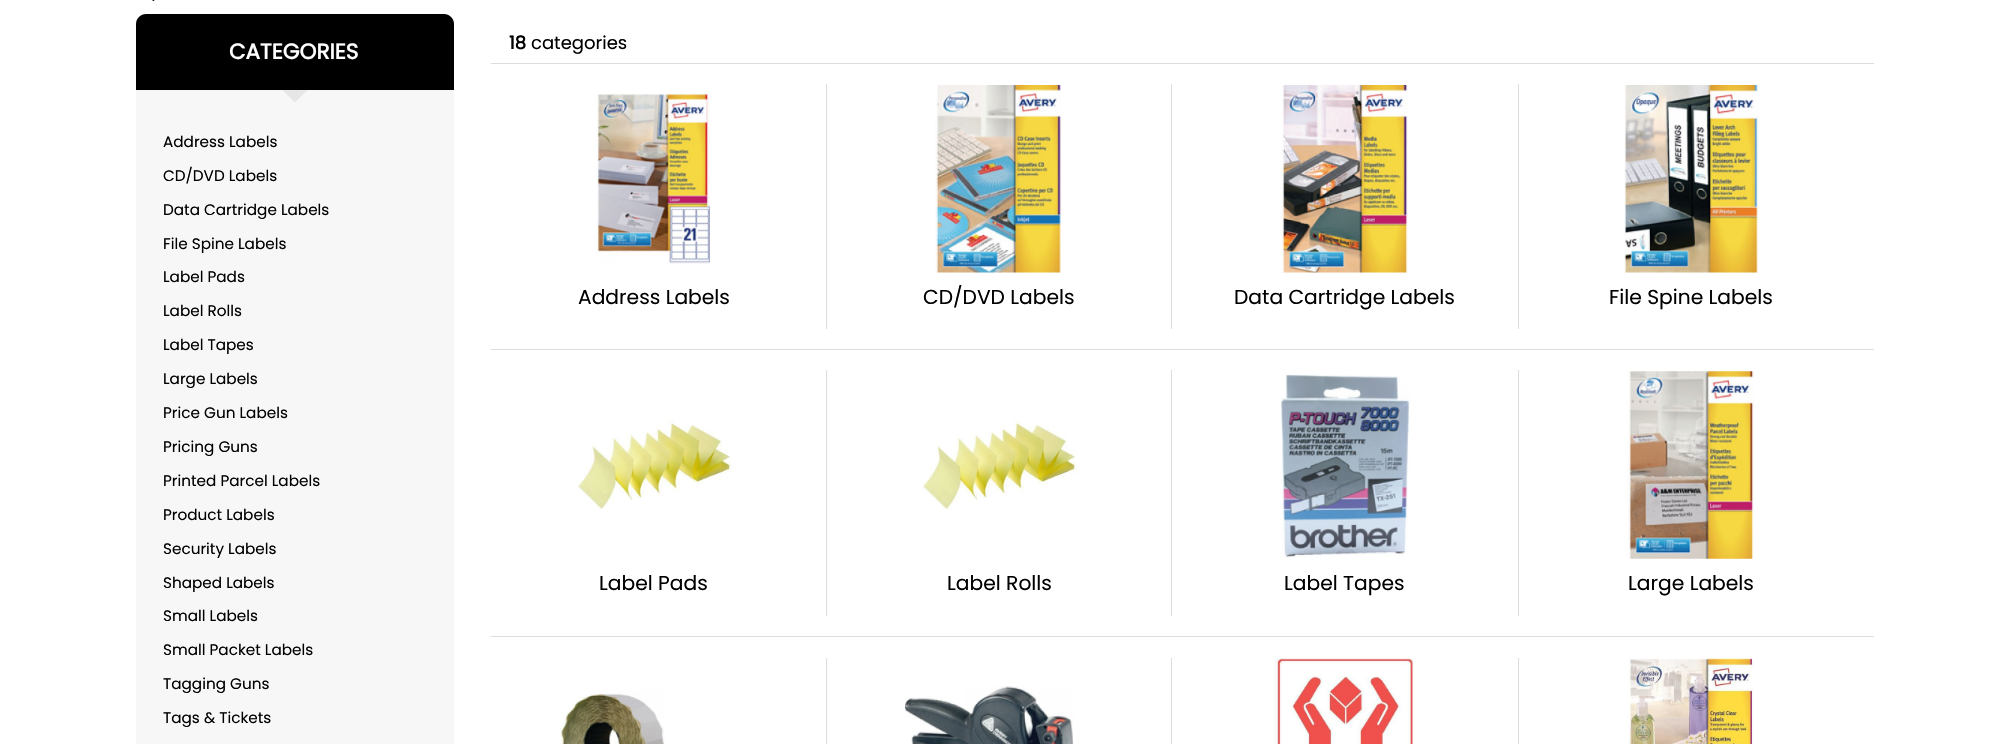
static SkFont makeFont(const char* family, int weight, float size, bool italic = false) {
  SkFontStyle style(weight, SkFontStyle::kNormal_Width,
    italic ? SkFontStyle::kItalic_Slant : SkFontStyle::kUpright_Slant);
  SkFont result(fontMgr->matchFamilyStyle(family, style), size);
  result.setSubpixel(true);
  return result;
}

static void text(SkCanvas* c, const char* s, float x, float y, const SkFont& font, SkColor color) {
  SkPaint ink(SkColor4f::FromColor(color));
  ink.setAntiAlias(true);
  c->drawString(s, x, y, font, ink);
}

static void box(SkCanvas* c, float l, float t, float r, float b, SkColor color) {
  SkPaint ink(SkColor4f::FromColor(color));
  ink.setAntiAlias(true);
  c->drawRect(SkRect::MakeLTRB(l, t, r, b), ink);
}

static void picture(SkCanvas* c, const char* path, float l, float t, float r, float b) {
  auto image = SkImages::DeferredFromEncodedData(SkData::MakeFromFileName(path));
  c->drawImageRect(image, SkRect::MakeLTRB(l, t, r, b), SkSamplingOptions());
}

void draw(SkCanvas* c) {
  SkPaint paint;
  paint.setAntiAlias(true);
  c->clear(0xffffffff);
  picture(c, "img_01.png", 152, 0, 155, 1);
  box(c, 136, 90, 454, 744, 0xfff7f7f7);
  paint.setColor(0xff000000);
  c->drawPath(SkPathBuilder().moveTo(146, 14).lineTo(444, 14).cubicTo(449.5f, 14, 454, 18.5f, 454, 24).lineTo(454, 90).lineTo(136, 90).lineTo(136, 24).cubicTo(136, 18.5f, 140.5f, 14, 146, 14).close().detach(), paint);
  SkFont face1 = makeFont("Poppins", 700, 21.5f);
  text(c, "CATEGORIES", 229, 59, face1, 0xffffffff);
  paint.setColor(0xffe6e6e6);
  c->drawPath(SkPathBuilder().moveTo(282.5f, 90).lineTo(307.5f, 90).lineTo(295, 102.5f).close().detach(), paint);
  SkFont face2 = makeFont("Poppins", 400, 15.25f);
  text(c, "Address Labels", 163, 147, face2, 0xff000000);
  text(c, "CD/DVD Labels", 163, 181, face2, 0xff000000);
  text(c, "Data Cartridge Labels", 163, 215, face2, 0xff000000);
  text(c, "File Spine Labels", 163, 249, face2, 0xff000000);
  text(c, "Label Pads", 163, 282, face2, 0xff000000);
  text(c, "Label Rolls", 163, 316, face2, 0xff000000);
  text(c, "Label Tapes", 163, 350, face2, 0xff000000);
  text(c, "Large Labels", 163, 384, face2, 0xff000000);
  text(c, "Price Gun Labels", 163, 418, face2, 0xff000000);
  text(c, "Pricing Guns", 163, 452, face2, 0xff000000);
  text(c, "Printed Parcel Labels", 163, 486, face2, 0xff000000);
  text(c, "Product Labels", 163, 520, face2, 0xff000000);
  text(c, "Security Labels", 163, 554, face2, 0xff000000);
  text(c, "Shaped Labels", 163, 588, face2, 0xff000000);
  text(c, "Small Labels", 163, 621, face2, 0xff000000);
  text(c, "Small Packet Labels", 163, 655, face2, 0xff000000);
  text(c, "Tagging Guns", 163, 689, face2, 0xff000000);
  text(c, "Tags & Tickets", 163, 723, face2, 0xff000000);
  SkFont face3 = makeFont("Poppins", 700, 18);
  text(c, "18", 509, 49, face3, 0xff000000);
  SkFont face4 = makeFont("Poppins", 400, 18);
  text(c, "categories", 531, 49, face4, 0xff000000);
  box(c, 491, 63, 1874, 64, 0xffdddddd);
  box(c, 826, 84, 827, 329, 0xffdddddd);
  picture(c, "img_02.png", 596, 91, 710, 265);
  SkFont face5 = makeFont("Poppins", 400, 20.25f);
  text(c, "Address Labels", 578, 304, face5, 0xff000000);
  box(c, 1171, 84, 1172, 329, 0xffdddddd);
  picture(c, "img_03.png", 935, 85, 1062, 273);
  text(c, "CD/DVD Labels", 923, 304, face5, 0xff000000);
  box(c, 1518, 84, 1519, 329, 0xffdddddd);
  picture(c, "img_04.png", 1281, 85, 1408, 273);
  text(c, "Data Cartridge Labels", 1234, 304, face5, 0xff000000);
  picture(c, "img_05.png", 1624, 85, 1760, 273);
  text(c, "File Spine Labels", 1609, 304, face5, 0xff000000);
  box(c, 491, 349, 1874, 350, 0xffdddddd);
  box(c, 826, 370, 827, 616, 0xffdddddd);
  picture(c, "img_06.png", 578, 419, 734, 510);
  text(c, "Label Pads", 599, 590, face5, 0xff000000);
  box(c, 1171, 370, 1172, 616, 0xffdddddd);
  picture(c, "img_07.png", 923, 419, 1079, 510);
  text(c, "Label Rolls", 947, 590, face5, 0xff000000);
  box(c, 1518, 370, 1519, 616, 0xffdddddd);
  picture(c, "img_08.png", 1281, 374, 1410, 558);
  text(c, "Label Tapes", 1284, 590, face5, 0xff000000);
  picture(c, "img_09.png", 1627, 371, 1754, 559);
  text(c, "Large Labels", 1628, 590, face5, 0xff000000);
  box(c, 491, 636, 1874, 637, 0xffdddddd);
  box(c, 826, 658, 827, 744, 0xffdddddd);
  picture(c, "img_10.png", 560, 690, 665, 744);
  box(c, 1171, 658, 1172, 744, 0xffdddddd);
  picture(c, "img_11.png", 905, 686, 1074, 744);
  box(c, 1518, 658, 1519, 744, 0xffdddddd);
  picture(c, "img_12.png", 1275, 658, 1414, 744);
  picture(c, "img_13.png", 1628, 658, 1754, 744);
}
